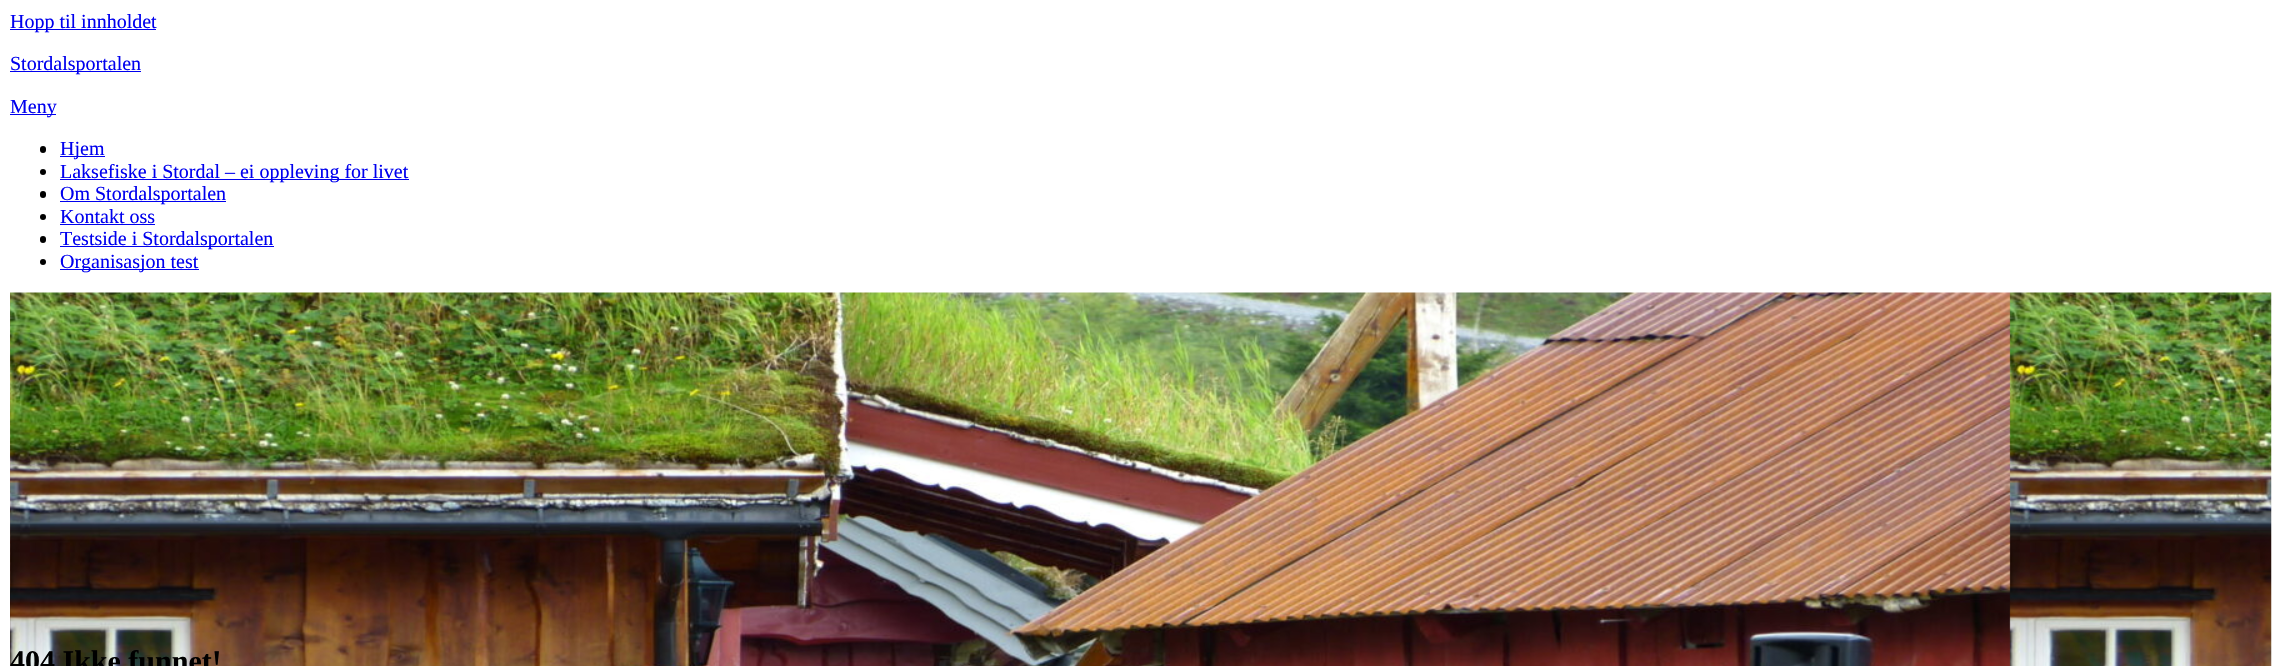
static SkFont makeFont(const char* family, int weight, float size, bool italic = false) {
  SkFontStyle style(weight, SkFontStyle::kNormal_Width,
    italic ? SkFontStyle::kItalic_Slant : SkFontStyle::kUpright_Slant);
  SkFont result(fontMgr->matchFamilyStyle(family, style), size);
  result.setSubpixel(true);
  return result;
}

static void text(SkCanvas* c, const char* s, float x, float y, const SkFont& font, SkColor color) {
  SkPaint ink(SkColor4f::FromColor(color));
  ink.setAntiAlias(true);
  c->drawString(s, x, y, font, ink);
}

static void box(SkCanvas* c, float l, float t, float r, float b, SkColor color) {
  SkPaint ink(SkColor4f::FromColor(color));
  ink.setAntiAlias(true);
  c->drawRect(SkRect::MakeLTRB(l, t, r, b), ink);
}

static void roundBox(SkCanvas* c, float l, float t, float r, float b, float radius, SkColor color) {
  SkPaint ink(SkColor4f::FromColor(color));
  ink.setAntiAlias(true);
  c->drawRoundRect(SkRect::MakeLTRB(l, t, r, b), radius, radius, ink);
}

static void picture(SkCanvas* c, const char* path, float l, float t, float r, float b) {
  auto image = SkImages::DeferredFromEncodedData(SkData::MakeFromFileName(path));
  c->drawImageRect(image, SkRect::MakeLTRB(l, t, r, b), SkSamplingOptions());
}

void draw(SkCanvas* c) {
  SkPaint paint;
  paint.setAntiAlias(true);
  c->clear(0xffffffff);
  box(c, 10, 29, 156, 30, 0xff0000ee);
  SkFont face1 = makeFont("Liberation Serif", 400, 20);
  text(c, "Hopp til innholdet", 10, 28, face1, 0xff0000ee);
  box(c, 10, 71, 141, 72, 0xff0000ee);
  text(c, "Stordalsportalen", 10, 70, face1, 0xff0000ee);
  box(c, 10, 114, 56, 115, 0xff0000ee);
  text(c, "Meny", 10, 113, face1, 0xff0000ee);
  roundBox(c, 40, 146, 46, 153, 3, 0xff000000);
  box(c, 60, 156, 105, 157, 0xff0000ee);
  text(c, "Hjem", 60, 155, face1, 0xff0000ee);
  paint.setColor(0xff000000);
  c->drawCircle(43, 172, 3, paint);
  box(c, 60, 179, 409, 180, 0xff0000ee);
  text(c, "Laksefiske i Stordal – ei oppleving for livet", 60, 178, face1, 0xff0000ee);
  roundBox(c, 40, 191, 46, 198, 3, 0xff000000);
  box(c, 60, 201, 226, 202, 0xff0000ee);
  text(c, "Om Stordalsportalen", 60, 200, face1, 0xff0000ee);
  c->drawCircle(43, 217, 3, paint);
  text(c, "Kontakt oss", 60, 223, face1, 0xff0000ee);
  box(c, 60, 224, 155, 225, 0xff0000ee);
  roundBox(c, 40, 236, 46, 243, 3, 0xff000000);
  box(c, 60, 246, 274, 247, 0xff0000ee);
  text(c, "Testside i Stordalsportalen", 60, 245, face1, 0xff0000ee);
  c->drawCircle(43, 262, 3, paint);
  box(c, 60, 269, 199, 270, 0xff0000ee);
  text(c, "Organisasjon test", 60, 268, face1, 0xff0000ee);
  picture(c, "img_01.png", 10, 292, 2272, 666);
  SkFont face2 = makeFont("Liberation Serif", 700, 30);
  text(c, "404 Ikke funnet!", 10, 671, face2, 0xff000000);
}
